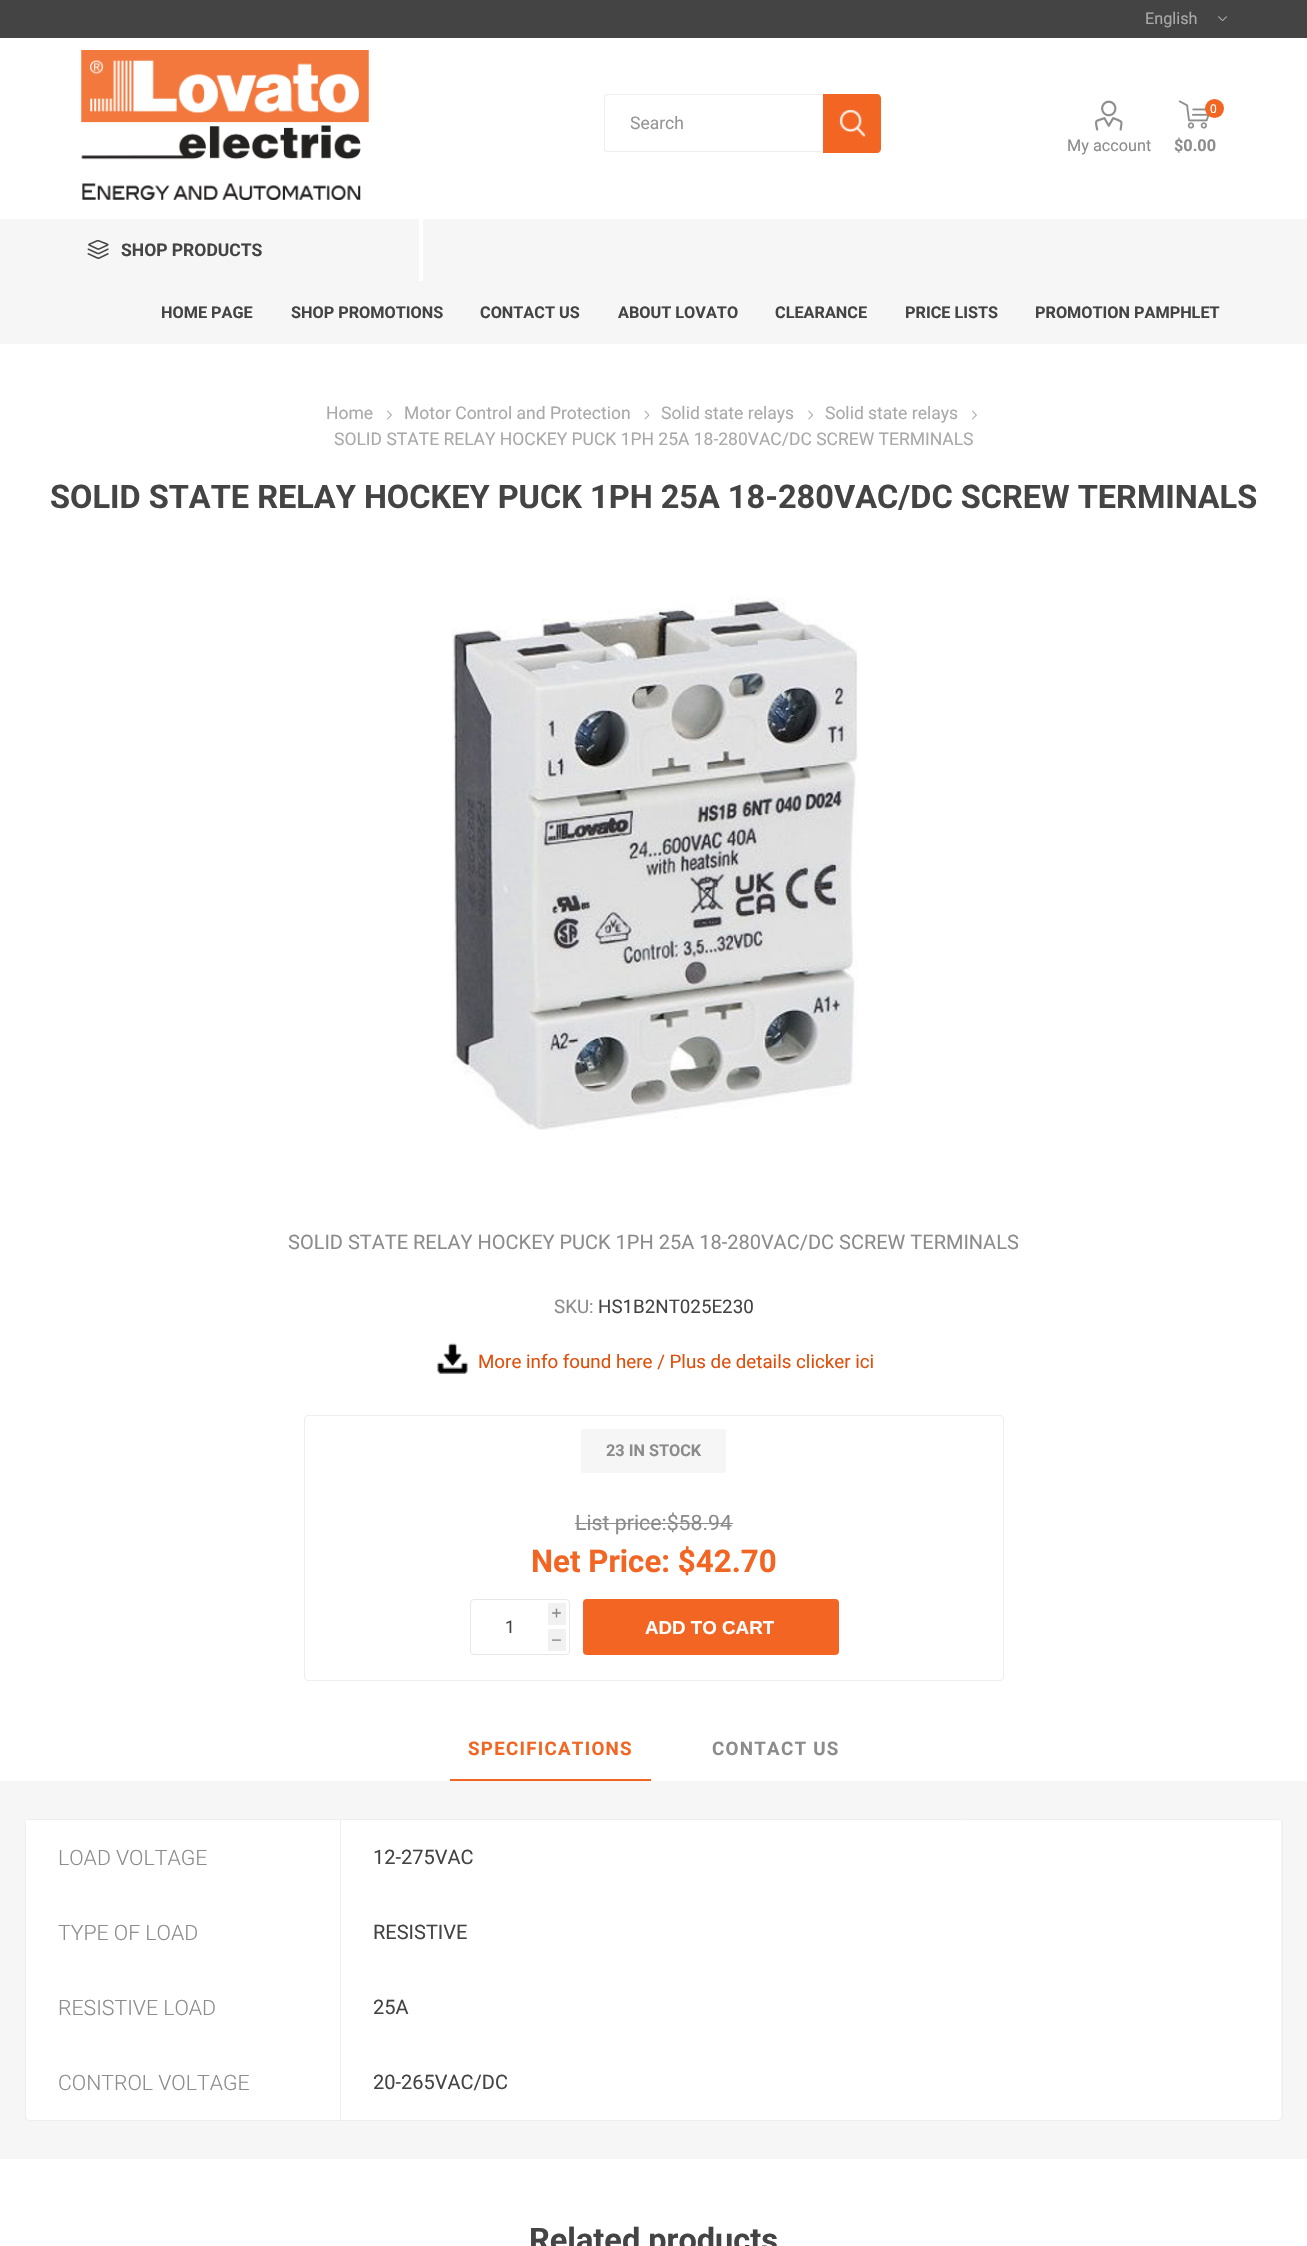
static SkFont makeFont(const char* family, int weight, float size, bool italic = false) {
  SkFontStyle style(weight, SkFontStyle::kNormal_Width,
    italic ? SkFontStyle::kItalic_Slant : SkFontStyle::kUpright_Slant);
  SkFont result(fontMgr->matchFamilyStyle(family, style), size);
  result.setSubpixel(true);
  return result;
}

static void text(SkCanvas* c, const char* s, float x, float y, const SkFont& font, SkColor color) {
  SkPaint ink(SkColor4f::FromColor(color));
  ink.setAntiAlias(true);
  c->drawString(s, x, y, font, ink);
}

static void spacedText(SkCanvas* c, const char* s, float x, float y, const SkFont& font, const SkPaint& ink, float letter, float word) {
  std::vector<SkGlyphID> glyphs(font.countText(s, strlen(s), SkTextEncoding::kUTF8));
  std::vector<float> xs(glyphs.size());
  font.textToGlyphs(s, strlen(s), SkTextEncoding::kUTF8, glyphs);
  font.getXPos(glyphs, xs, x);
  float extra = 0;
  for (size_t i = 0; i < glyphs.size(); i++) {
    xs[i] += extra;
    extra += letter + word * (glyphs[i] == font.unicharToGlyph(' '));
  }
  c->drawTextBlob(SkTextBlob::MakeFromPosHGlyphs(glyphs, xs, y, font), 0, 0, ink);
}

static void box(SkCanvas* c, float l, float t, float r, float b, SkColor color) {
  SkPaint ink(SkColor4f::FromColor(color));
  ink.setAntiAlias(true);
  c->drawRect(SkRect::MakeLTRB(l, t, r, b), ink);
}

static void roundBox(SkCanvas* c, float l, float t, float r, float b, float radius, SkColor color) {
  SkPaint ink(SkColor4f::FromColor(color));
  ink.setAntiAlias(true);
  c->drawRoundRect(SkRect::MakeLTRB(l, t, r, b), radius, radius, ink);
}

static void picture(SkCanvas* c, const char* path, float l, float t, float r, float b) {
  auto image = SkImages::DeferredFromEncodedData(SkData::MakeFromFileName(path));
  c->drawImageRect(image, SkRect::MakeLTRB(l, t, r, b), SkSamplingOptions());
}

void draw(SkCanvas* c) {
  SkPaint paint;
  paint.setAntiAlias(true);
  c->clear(0xffffffff);
  box(c, 0, 0, 1307, 38, 0xff444444);
  SkFont face1 = makeFont("Roboto", 400, 16.25f);
  text(c, "English", 1145, 24, face1, 0xffa9a9a9);
  picture(c, "img_01.png", 1218, 16, 1227, 21);
  picture(c, "img_02.png", 81, 50, 369, 200);
  paint.setColor(0xffeeeeee);
  c->drawPath(SkPathBuilder(SkPathFillType::kEvenOdd).moveTo(608, 94).lineTo(822, 94).lineTo(822, 152).lineTo(608, 152).cubicTo(605, 152, 604, 151, 604, 149).lineTo(604, 98).cubicTo(604, 95, 605, 94, 608, 94).close().moveTo(608, 95).lineTo(822, 95).lineTo(822, 151).lineTo(608, 151).cubicTo(606, 151, 605, 150, 605, 149).lineTo(605, 98).cubicTo(605, 96, 606, 95, 608, 95).close().detach(), paint);
  SkFont face2 = makeFont("Roboto", 400, 17.5f);
  text(c, "Search", 630, 129, face2, 0xff959595);
  paint.setColor(0xfff26522);
  c->drawPath(SkPathBuilder().moveTo(823, 94).lineTo(877, 94).cubicTo(879, 94, 881, 96, 881, 98).lineTo(881, 149).cubicTo(881, 151, 879, 153, 877, 153).lineTo(823, 153).close().detach(), paint);
  picture(c, "img_03.png", 839, 109, 866, 137);
  picture(c, "img_04.png", 1095, 100, 1123, 131);
  text(c, "My account", 1067, 151, face1, 0xff8c8c8c);
  picture(c, "img_05.png", 1178, 100, 1209, 129);
  c->drawCircle(1214.5f, 108.5f, 9.5f, paint);
  SkFont face3 = makeFont("Roboto", 400, 12);
  text(c, "0", 1210, 113, face3, 0xffffffff);
  SkFont face4 = makeFont("Roboto", 700, 16.25f);
  text(c, "$0.00", 1174, 151, face4, 0xff8c8c8c);
  box(c, 0, 219, 1307, 344, 0xfff6f6f6);
  box(c, 419, 219, 423, 281, 0xffffffff);
  picture(c, "img_06.png", 87, 240, 109, 259);
  SkFont face5 = makeFont("Roboto", 700, 17.5f);
  text(c, "SHOP PRODUCTS", 121, 256, face5, 0xff444444);
  text(c, "HOME PAGE", 161, 318, face4, 0xff444444);
  text(c, "SHOP PROMOTIONS", 291, 318, face4, 0xff444444);
  text(c, "CONTACT US", 480, 318, face4, 0xff444444);
  text(c, "ABOUT LOVATO", 618, 318, face4, 0xff444444);
  text(c, "CLEARANCE", 775, 318, face4, 0xff444444);
  text(c, "PRICE LISTS", 905, 318, face4, 0xff444444);
  text(c, "PROMOTION PAMPHLET", 1035, 318, face4, 0xff444444);
  text(c, "Home", 326, 419, face2, 0xffa9a9a9);
  picture(c, "img_07.png", 387, 410, 392, 420);
  text(c, "Motor Control and Protection", 404, 419, face2, 0xffa9a9a9);
  picture(c, "img_08.png", 644, 410, 650, 420);
  text(c, "Solid state relays", 661, 419, face2, 0xffa9a9a9);
  picture(c, "img_09.png", 808, 410, 813, 420);
  text(c, "Solid state relays", 825, 419, face2, 0xffa9a9a9);
  picture(c, "img_07.png", 972, 410, 977, 420);
  text(c, "SOLID STATE RELAY HOCKEY PUCK 1PH 25A 18-280VAC/DC SCREW TERMINALS", 334, 445, face2, 0xffa9a9a9);
  SkFont face6 = makeFont("Roboto", 700, 32.5f);
  text(c, "SOLID STATE RELAY HOCKEY PUCK 1PH 25A 18-280VAC/DC SCREW TERMINALS", 50, 508, face6, 0xff444444);
  picture(c, "img_10.png", 451, 596, 858, 1130);
  SkFont face7 = makeFont("Roboto", 400, 20);
  text(c, "SOLID STATE RELAY HOCKEY PUCK 1PH 25A 18-280VAC/DC SCREW TERMINALS", 288, 1249, face7, 0xff8c8c8c);
  SkFont face8 = makeFont("Roboto", 400, 18.75f);
  text(c, "SKU:", 554, 1313, face8, 0xff8c8c8c);
  text(c, "HS1B2NT025E230", 598, 1313, face8, 0xff444444);
  picture(c, "img_11.png", 437, 1343, 468, 1374);
  text(c, "More info found here / Plus de details clicker ici", 478, 1368, face8, 0xffde500d);
  paint.setStyle(SkPaint::kStroke_Style);
  paint.setStrokeWidth(1);
  paint.setColor(0xffeeeeee);
  c->drawRoundRect(SkRect::MakeLTRB(304.5f, 1415.5f, 1003.5f, 1680.5f), 3.5f, 3.5f, paint);
  roundBox(c, 581, 1429, 726, 1473, 2.5f, 0xfff6f6f6);
  text(c, "23 IN STOCK", 606, 1456, face4, 0xff8c8c8c);
  SkFont face9 = makeFont("Roboto", 400, 21.25f);
  text(c, "List price:$58.94", 575, 1530, face9, 0xff8c8c8c);
  box(c, 575, 1523, 733, 1524, 0xff8c8c8c);
  SkFont face10 = makeFont("Roboto", 700, 31.25f);
  text(c, "Net Price: $42.70", 531, 1572, face10, 0xfff26522);
  paint.setColor(0xffe7e7e7);
  c->drawRoundRect(SkRect::MakeLTRB(470.5f, 1599.5f, 569.5f, 1654.5f), 3.5f, 3.5f, paint);
  box(c, 548, 1603, 566, 1625, 0xfff1f1f1);
  SkFont face11 = makeFont("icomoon", 400, 9);
  text(c, "i", 552, 1617, face11, 0xff8c8c8c);
  text(c, "1", 505, 1633, face2, 0xff444444);
  box(c, 548, 1629, 566, 1651, 0xfff1f1f1);
  text(c, "h", 552, 1644, face11, 0xff8c8c8c);
  roundBox(c, 583, 1599, 839, 1655, 4, 0xfff26522);
  SkFont face12 = makeFont("Liberation Sans", 700, 18.75f);
  text(c, "ADD TO CART", 645, 1634, face12, 0xffffffff);
  box(c, 450, 1779, 651, 1781, 0xfff26522);
  SkFont face13 = makeFont("Roboto", 700, 18.75f);
  paint.setStyle(SkPaint::kFill_Style);
  paint.setColor(0xfff26522);
  spacedText(c, "SPECIFICATIONS", 468, 1755, face13, paint, 1.25f, 0);
  paint.setColor(0xff8c8c8c);
  spacedText(c, "CONTACT US", 712, 1755, face13, paint, 1.25f, 0);
  box(c, 0, 1781, 1307, 2159, 0xfff6f6f6);
  paint.setStyle(SkPaint::kStroke_Style);
  paint.setColor(0xffeeeeee);
  c->drawRoundRect(SkRect::MakeLTRB(25.5f, 1819.5f, 1282.5f, 2120.5f), 3.5f, 3.5f, paint);
  box(c, 26, 1820, 340, 2045, 0xffffffff);
  SkFont face14 = makeFont("Roboto", 300, 21.25f);
  text(c, "LOAD VOLTAGE", 58, 1865, face14, 0xff8c8c8c);
  box(c, 341, 1820, 1281, 2045, 0xffffffff);
  box(c, 340, 1820, 341, 2045, 0xffeeeeee);
  text(c, "12-275VAC", 373, 1864, face7, 0xff444444);
  text(c, "TYPE OF LOAD", 58, 1940, face14, 0xff8c8c8c);
  text(c, "RESISTIVE", 373, 1939, face7, 0xff444444);
  text(c, "RESISTIVE LOAD", 58, 2015, face14, 0xff8c8c8c);
  text(c, "25A", 373, 2014, face7, 0xff444444);
  paint.setStyle(SkPaint::kFill_Style);
  paint.setColor(0xffffffff);
  c->drawPath(SkPathBuilder().moveTo(26, 2045).lineTo(340, 2045).lineTo(340, 2120).lineTo(30, 2120).cubicTo(28, 2120, 26, 2118, 26, 2116).close().detach(), paint);
  text(c, "CONTROL VOLTAGE", 58, 2090, face14, 0xff8c8c8c);
  c->drawPath(SkPathBuilder().moveTo(340, 2045).lineTo(1281, 2045).lineTo(1281, 2116).cubicTo(1281, 2118, 1279, 2120, 1277, 2120).lineTo(340, 2120).close().detach(), paint);
  box(c, 340, 2045, 341, 2120, 0xffeeeeee);
  text(c, "20-265VAC/DC", 373, 2089, face7, 0xff444444);
  text(c, "Related products", 529, 2251, face6, 0xff444444);
}
